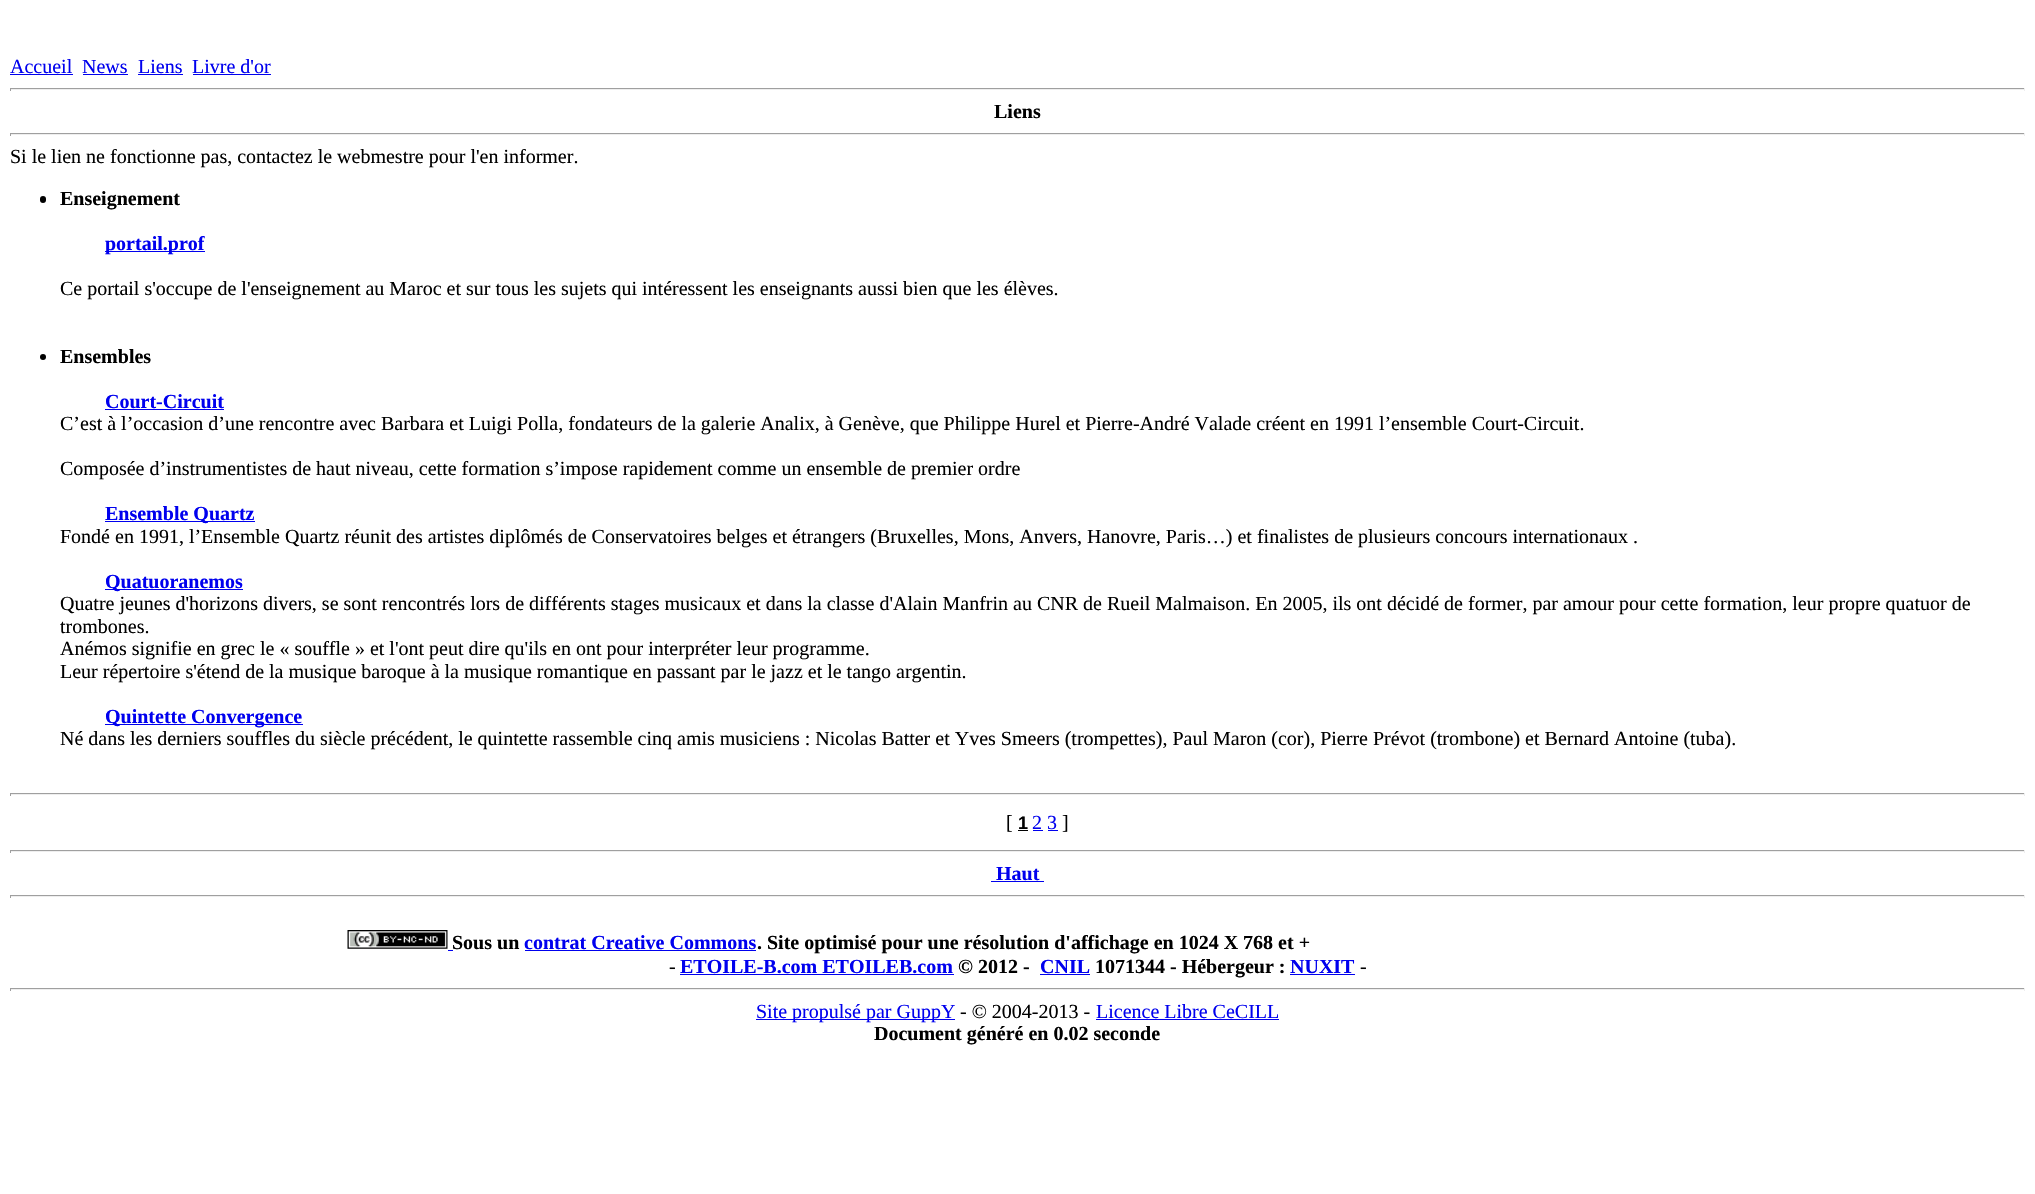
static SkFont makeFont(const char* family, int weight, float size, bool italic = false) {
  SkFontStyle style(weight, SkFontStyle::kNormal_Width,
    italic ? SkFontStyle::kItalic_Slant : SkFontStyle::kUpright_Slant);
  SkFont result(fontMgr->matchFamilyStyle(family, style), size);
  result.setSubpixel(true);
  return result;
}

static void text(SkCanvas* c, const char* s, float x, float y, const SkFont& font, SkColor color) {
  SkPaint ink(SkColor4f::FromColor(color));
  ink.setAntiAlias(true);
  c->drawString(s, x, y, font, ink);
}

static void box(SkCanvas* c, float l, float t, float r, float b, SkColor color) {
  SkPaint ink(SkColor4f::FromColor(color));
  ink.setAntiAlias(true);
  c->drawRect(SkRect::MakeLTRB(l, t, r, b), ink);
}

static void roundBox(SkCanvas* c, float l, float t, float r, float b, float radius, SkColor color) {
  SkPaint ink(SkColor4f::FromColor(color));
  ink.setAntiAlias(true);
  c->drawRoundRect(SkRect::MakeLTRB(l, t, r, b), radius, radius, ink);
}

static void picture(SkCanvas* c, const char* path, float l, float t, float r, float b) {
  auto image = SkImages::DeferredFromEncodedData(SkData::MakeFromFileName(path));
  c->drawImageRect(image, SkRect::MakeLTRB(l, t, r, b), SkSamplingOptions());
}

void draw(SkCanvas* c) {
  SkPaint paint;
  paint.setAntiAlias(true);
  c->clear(0xffffffff);
  SkFont face1 = makeFont("Liberation Serif", 400, 20);
  text(c, "Accueil", 10, 73, face1, 0xff0000ee);
  box(c, 10, 74, 73, 75, 0xff0000ee);
  text(c, "News", 82, 73, face1, 0xff0000ee);
  box(c, 83, 74, 128, 75, 0xff0000ee);
  text(c, "Liens", 138, 73, face1, 0xff0000ee);
  box(c, 138, 74, 183, 75, 0xff0000ee);
  text(c, "Livre d'or", 192, 73, face1, 0xff0000ee);
  box(c, 193, 74, 271, 75, 0xff0000ee);
  box(c, 10, 88, 2025, 89, 0xff9f9f9f);
  box(c, 2024, 88, 2025, 91, 0xffeeeeee);
  box(c, 10, 89, 2025, 90, 0xffeeeeee);
  box(c, 10, 88, 11, 91, 0xff9f9f9f);
  SkFont face2 = makeFont("Liberation Serif", 700, 20);
  text(c, "Liens", 994, 118, face2, 0xff000000);
  box(c, 10, 133, 2025, 134, 0xff9f9f9f);
  box(c, 2024, 133, 2025, 136, 0xffeeeeee);
  box(c, 10, 134, 2025, 135, 0xffeeeeee);
  box(c, 10, 133, 11, 136, 0xff9f9f9f);
  text(c, "Si le lien ne fonctionne pas, contactez le webmestre pour l'en informer.", 10, 163, face1, 0xff000000);
  roundBox(c, 40, 196, 46, 203, 3, 0xff000000);
  text(c, "Enseignement", 60, 205, face2, 0xff000000);
  box(c, 105, 251, 205, 252, 0xff0000ee);
  text(c, "portail.prof", 105, 250, face2, 0xff0000ee);
  text(c, "Ce portail s'occupe de l'enseignement au Maroc et sur tous les sujets qui intéressent les enseignants aussi bien que les élèves.", 60, 295, face1, 0xff000000);
  paint.setColor(0xff000000);
  c->drawCircle(43, 357, 3, paint);
  text(c, "Ensembles", 60, 363, face2, 0xff000000);
  text(c, "Court-Circuit", 105, 408, face2, 0xff0000ee);
  box(c, 105, 409, 224, 410, 0xff0000ee);
  text(c, "C’est à l’occasion d’une rencontre avec Barbara et Luigi Polla, fondateurs de la galerie Analix, à Genève, que Philippe Hurel et Pierre-André Valade créent en 1991 l’ensemble Court-Circuit.", 60, 430, face1, 0xff000000);
  text(c, "Composée d’instrumentistes de haut niveau, cette formation s’impose rapidement comme un ensemble de premier ordre", 60, 475, face1, 0xff000000);
  box(c, 105, 521, 255, 522, 0xff0000ee);
  text(c, "Ensemble Quartz", 105, 520, face2, 0xff0000ee);
  text(c, "Fondé en 1991, l’Ensemble Quartz réunit des artistes diplômés de Conservatoires belges et étrangers (Bruxelles, Mons, Anvers, Hanovre, Paris…) et finalistes de plusieurs concours internationaux .", 60, 543, face1, 0xff000000);
  box(c, 105, 589, 243, 590, 0xff0000ee);
  text(c, "Quatuoranemos", 105, 588, face2, 0xff0000ee);
  text(c, "Quatre jeunes d'horizons divers, se sont rencontrés lors de différents stages musicaux et dans la classe d'Alain Manfrin au CNR de Rueil Malmaison. En 2005, ils ont décidé de former, par amour pour cette formation, leur propre quatuor de", 60, 610, face1, 0xff000000);
  text(c, "trombones.", 60, 633, face1, 0xff000000);
  text(c, "Anémos signifie en grec le « souffle » et l'ont peut dire qu'ils en ont pour interpréter leur programme.", 60, 655, face1, 0xff000000);
  text(c, "Leur répertoire s'étend de la musique baroque à la musique romantique en passant par le jazz et le tango argentin.", 60, 678, face1, 0xff000000);
  box(c, 105, 724, 303, 725, 0xff0000ee);
  text(c, "Quintette Convergence", 105, 723, face2, 0xff0000ee);
  text(c, "Né dans les derniers souffles du siècle précédent, le quintette rassemble cinq amis musiciens : Nicolas Batter et Yves Smeers (trompettes), Paul Maron (cor), Pierre Prévot (trombone) et Bernard Antoine (tuba).", 60, 745, face1, 0xff000000);
  box(c, 10, 793, 2025, 794, 0xff9f9f9f);
  box(c, 2024, 793, 2025, 796, 0xffeeeeee);
  box(c, 10, 794, 2025, 795, 0xffeeeeee);
  box(c, 10, 793, 11, 796, 0xff9f9f9f);
  text(c, "[", 1006, 829, face1, 0xff000000);
  SkFont face3 = makeFont("Liberation Sans", 700, 18);
  text(c, "1", 1018, 829, face3, 0xff000000);
  box(c, 1018, 830, 1028, 831, 0xff000000);
  text(c, "2 3", 1032, 829, face1, 0xff0000ee);
  box(c, 1033, 830, 1043, 831, 0xff0000ee);
  text(c, "]", 1062, 829, face1, 0xff000000);
  box(c, 1048, 830, 1058, 831, 0xff0000ee);
  box(c, 10, 850, 2025, 851, 0xff9f9f9f);
  box(c, 2024, 850, 2025, 853, 0xffeeeeee);
  box(c, 10, 851, 2025, 852, 0xffeeeeee);
  box(c, 10, 850, 11, 853, 0xff9f9f9f);
  text(c, "Haut", 996, 880, face2, 0xff0000ee);
  box(c, 991, 881, 1044, 882, 0xff0000ee);
  box(c, 10, 895, 2025, 896, 0xff9f9f9f);
  box(c, 2024, 895, 2025, 898, 0xffeeeeee);
  box(c, 10, 896, 2025, 897, 0xffeeeeee);
  box(c, 10, 895, 11, 898, 0xff9f9f9f);
  picture(c, "img_01.png", 347, 930, 448, 949);
  text(c, "Sous un", 452, 949, face2, 0xff000000);
  text(c, "contrat Creative Commons", 524, 949, face2, 0xff0000ee);
  box(c, 525, 950, 756, 951, 0xff0000ee);
  text(c, ". Site optimisé pour une résolution d'affichage en 1024 X 768 et +", 757, 949, face2, 0xff000000);
  box(c, 448, 950, 453, 951, 0xff0000ee);
  text(c, "-", 669, 973, face1, 0xff000000);
  text(c, "ETOILE-B.com ETOILEB.com", 680, 973, face2, 0xff0000ee);
  box(c, 680, 974, 954, 975, 0xff0000ee);
  text(c, "© 2012 -", 958, 973, face2, 0xff000000);
  text(c, "CNIL", 1040, 973, face2, 0xff0000ee);
  box(c, 1040, 974, 1090, 975, 0xff0000ee);
  text(c, "1071344 - Hébergeur :", 1095, 973, face2, 0xff000000);
  text(c, "NUXIT", 1290, 973, face2, 0xff0000ee);
  box(c, 1290, 974, 1355, 975, 0xff0000ee);
  text(c, "-", 1360, 973, face1, 0xff000000);
  box(c, 10, 988, 2025, 989, 0xff9f9f9f);
  box(c, 2024, 988, 2025, 991, 0xffeeeeee);
  box(c, 10, 989, 2025, 990, 0xffeeeeee);
  box(c, 10, 988, 11, 991, 0xff9f9f9f);
  box(c, 756, 1019, 955, 1020, 0xff0000ee);
  text(c, "Site propulsé par GuppY", 756, 1018, face1, 0xff0000ee);
  text(c, "- © 2004-2013 -", 960, 1018, face1, 0xff000000);
  text(c, "Licence Libre CeCILL", 1096, 1018, face1, 0xff0000ee);
  box(c, 1096, 1019, 1279, 1020, 0xff0000ee);
  text(c, "Document généré en 0.02 seconde", 874, 1040, face2, 0xff000000);
}
